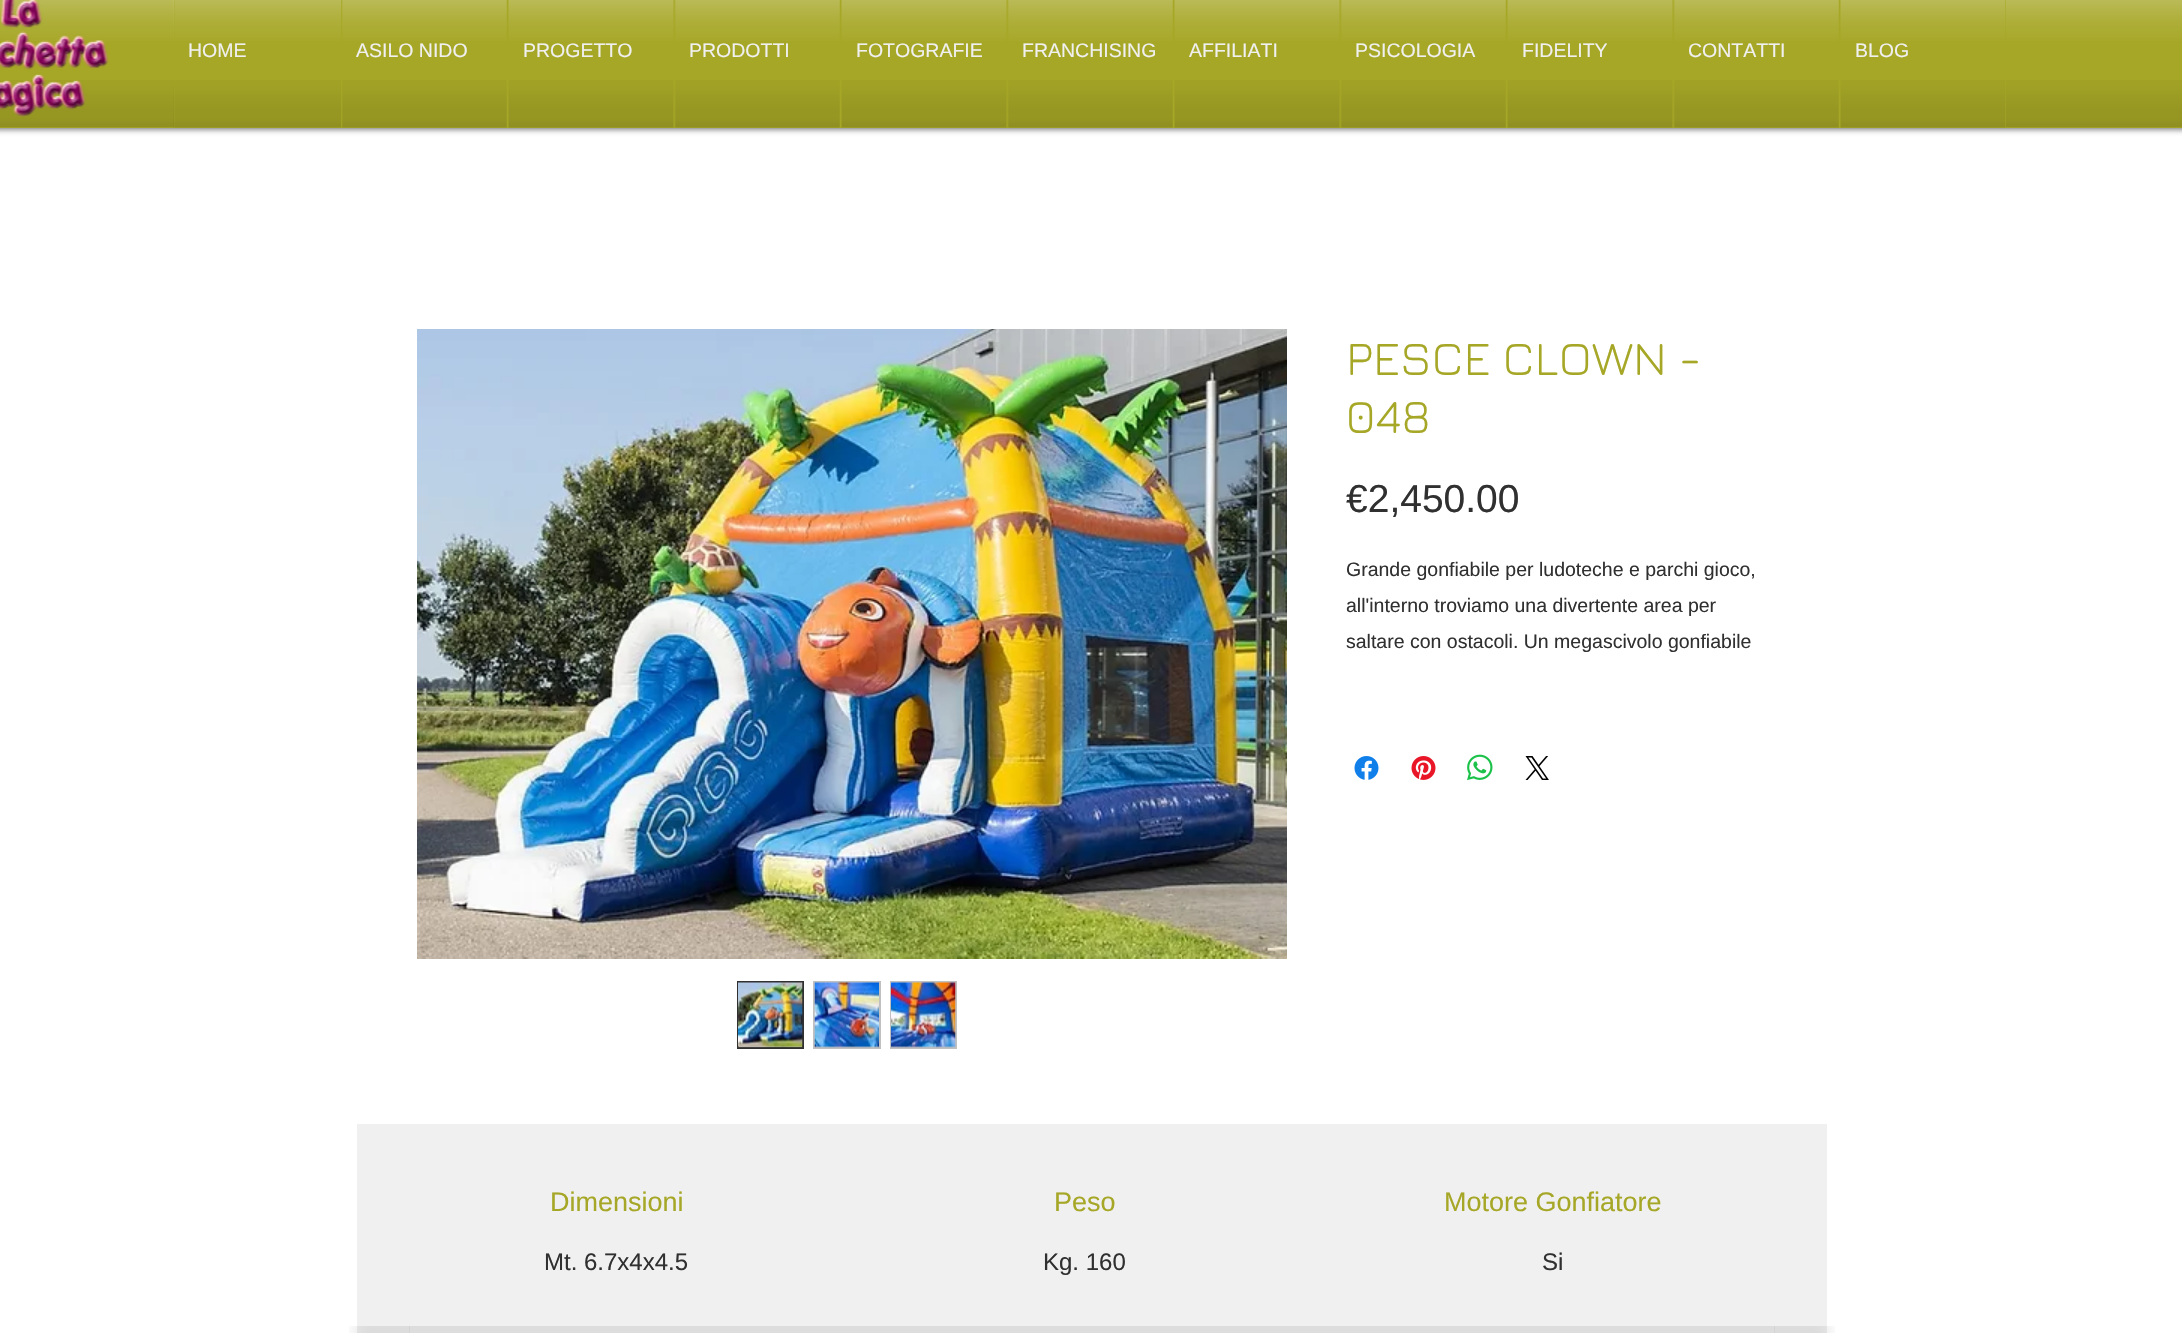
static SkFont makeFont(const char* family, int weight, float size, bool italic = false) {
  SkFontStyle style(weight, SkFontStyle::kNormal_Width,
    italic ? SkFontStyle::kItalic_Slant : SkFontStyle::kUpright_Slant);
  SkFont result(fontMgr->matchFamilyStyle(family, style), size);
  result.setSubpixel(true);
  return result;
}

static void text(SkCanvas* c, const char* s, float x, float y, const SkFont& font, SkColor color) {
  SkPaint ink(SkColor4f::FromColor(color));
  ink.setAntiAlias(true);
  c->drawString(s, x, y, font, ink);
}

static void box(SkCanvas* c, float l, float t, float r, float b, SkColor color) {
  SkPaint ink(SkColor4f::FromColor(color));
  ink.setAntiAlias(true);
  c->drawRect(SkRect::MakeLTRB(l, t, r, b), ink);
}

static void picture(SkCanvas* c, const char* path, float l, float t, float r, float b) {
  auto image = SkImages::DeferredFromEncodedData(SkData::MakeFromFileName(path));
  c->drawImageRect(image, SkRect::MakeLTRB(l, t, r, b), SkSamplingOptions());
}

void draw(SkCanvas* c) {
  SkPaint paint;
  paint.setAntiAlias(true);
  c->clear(0xffffffff);
  paint.setColor(0x99000000);
  paint.setMaskFilter(SkMaskFilter::MakeBlur(kNormal_SkBlurStyle, 3));
  c->drawRoundRect(SkRect::MakeLTRB(-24, -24, 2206, 129), 15, 15, paint);
  paint.setMaskFilter(nullptr);
  box(c, 0, 0, 2182, 128, 0xffa6a726);
  picture(c, "img_02.png", 0, 0, 2182, 41);
  picture(c, "img_03.png", 0, 80, 2182, 128);
  picture(c, "img_01.png", 0, 0, 109, 117);
  box(c, 174, 0, 2006, 128, 0xffa6a726);
  picture(c, "img_04.png", 173, 0, 341, 41);
  picture(c, "img_05.png", 173, 80, 341, 128);
  SkFont face1 = makeFont("Liberation Sans", 400, 19.5f);
  text(c, "HOME", 188, 57, face1, 0xfff0f0f0);
  picture(c, "img_06.png", 341, 0, 507, 41);
  picture(c, "img_07.png", 341, 80, 507, 128);
  text(c, "ASILO NIDO", 356, 57, face1, 0xfff0f0f0);
  picture(c, "img_08.png", 508, 0, 674, 41);
  picture(c, "img_09.png", 508, 80, 674, 128);
  text(c, "PROGETTO", 523, 57, face1, 0xfff0f0f0);
  picture(c, "img_06.png", 674, 0, 840, 41);
  picture(c, "img_07.png", 674, 80, 840, 128);
  text(c, "PRODOTTI", 689, 57, face1, 0xfff0f0f0);
  picture(c, "img_08.png", 841, 0, 1007, 41);
  picture(c, "img_09.png", 841, 80, 1007, 128);
  text(c, "FOTOGRAFIE", 856, 57, face1, 0xfff0f0f0);
  picture(c, "img_06.png", 1007, 0, 1173, 41);
  picture(c, "img_07.png", 1007, 80, 1173, 128);
  text(c, "FRANCHISING", 1022, 57, face1, 0xfff0f0f0);
  picture(c, "img_08.png", 1174, 0, 1340, 41);
  picture(c, "img_09.png", 1174, 80, 1340, 128);
  text(c, "AFFILIATI", 1189, 57, face1, 0xfff0f0f0);
  picture(c, "img_06.png", 1340, 0, 1506, 41);
  picture(c, "img_07.png", 1340, 80, 1506, 128);
  text(c, "PSICOLOGIA", 1355, 57, face1, 0xfff0f0f0);
  picture(c, "img_08.png", 1507, 0, 1673, 41);
  picture(c, "img_09.png", 1507, 80, 1673, 128);
  text(c, "FIDELITY", 1522, 57, face1, 0xfff0f0f0);
  picture(c, "img_06.png", 1673, 0, 1839, 41);
  picture(c, "img_07.png", 1673, 80, 1839, 128);
  text(c, "CONTATTI", 1688, 57, face1, 0xfff0f0f0);
  picture(c, "img_08.png", 1840, 0, 2006, 41);
  picture(c, "img_09.png", 1840, 80, 2006, 128);
  text(c, "BLOG", 1855, 57, face1, 0xfff0f0f0);
  picture(c, "img_10.png", 417, 329, 1287, 959);
  box(c, 739, 1046, 802, 1047, 0xffc0c0c0);
  paint.setStyle(SkPaint::kStroke_Style);
  paint.setStrokeWidth(2);
  paint.setColor(0xff303030);
  c->drawRect(SkRect::MakeLTRB(738, 982, 803, 1048), paint);
  picture(c, "img_11.png", 738, 982, 803, 1048);
  box(c, 813, 981, 881, 1049, 0xffc0c0c0);
  picture(c, "img_12.png", 814, 982, 879, 1048);
  box(c, 890, 981, 957, 1049, 0xffc0c0c0);
  picture(c, "img_13.png", 891, 982, 956, 1048);
  SkFont face2 = makeFont("Jura", 400, 48);
  text(c, "PESCE CLOWN -", 1346, 375, face2, 0xffa6a726);
  text(c, "048", 1346, 433, face2, 0xffa6a726);
  SkFont face3 = makeFont("Liberation Sans", 400, 39);
  text(c, "€2,450.00", 1346, 512, face3, 0xff303030);
  text(c, "Grande gonfiabile per ludoteche e parchi gioco,", 1346, 576, face1, 0xff303030);
  text(c, "all'interno troviamo una divertente area per", 1346, 612, face1, 0xff303030);
  text(c, "saltare con ostacoli. Un megascivolo gonfiabile", 1346, 648, face1, 0xff303030);
  picture(c, "img_14.png", 1354, 756, 1379, 780);
  picture(c, "img_15.png", 1411, 756, 1436, 780);
  picture(c, "img_16.png", 1467, 754, 1493, 781);
  picture(c, "img_17.png", 1525, 756, 1549, 780);
  box(c, 357, 1124, 1827, 1333, 0xfff0f0f0);
  SkFont face4 = makeFont("Liberation Sans", 400, 27);
  text(c, "Dimensioni", 550, 1211, face4, 0xffa6a726);
  SkFont face5 = makeFont("Liberation Sans", 400, 24);
  text(c, "Mt. 6.7x4x4.5", 544, 1270, face5, 0xff303030);
  text(c, "Peso", 1054, 1211, face4, 0xffa6a726);
  text(c, "Kg. 160", 1043, 1270, face5, 0xff303030);
  text(c, "Motore Gonfiatore", 1444, 1211, face4, 0xffa6a726);
  text(c, "Si", 1542, 1270, face5, 0xff303030);
  picture(c, "img_18.png", 349, 1326, 410, 1333);
  box(c, 409, 1326, 1775, 1333, 0x14000000);
  picture(c, "img_19.png", 1774, 1326, 1835, 1333);
}
